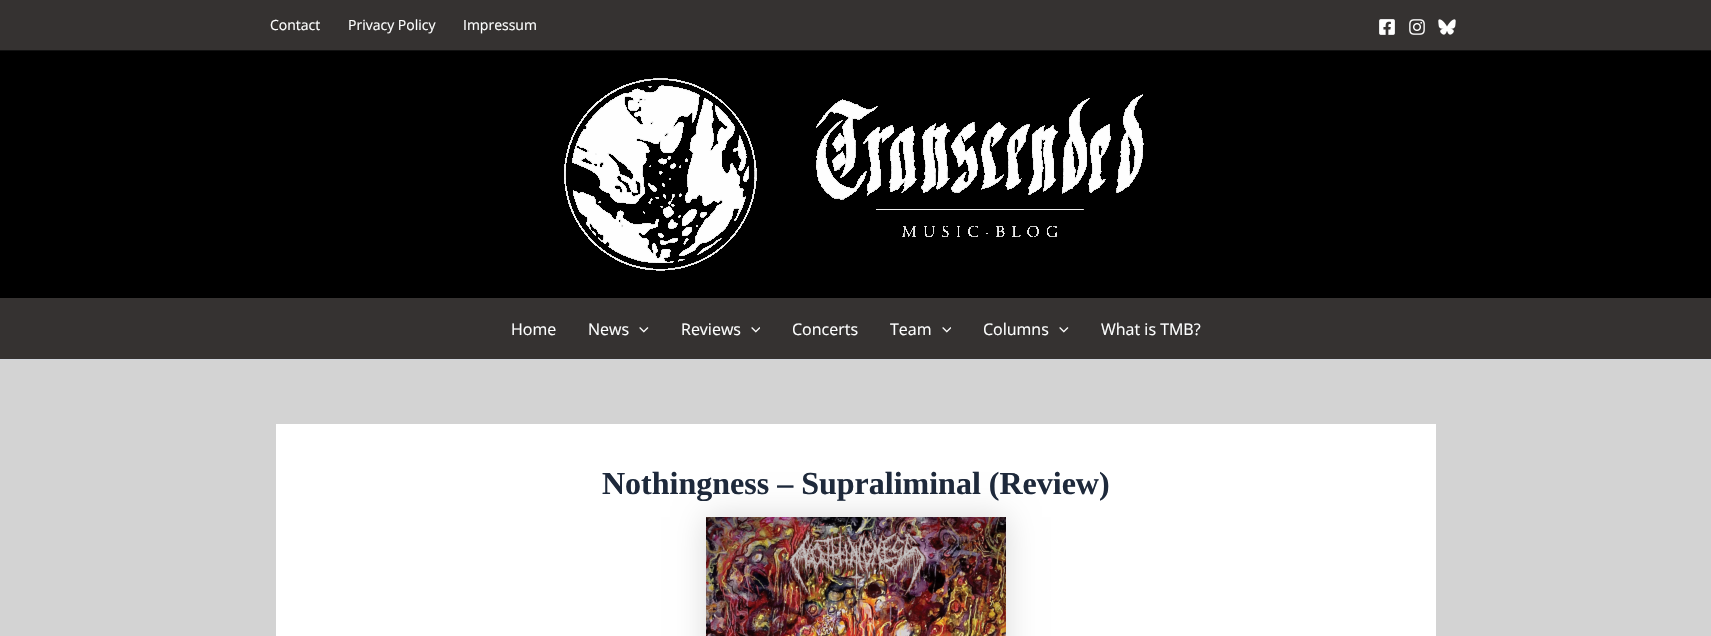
static SkFont makeFont(const char* family, int weight, float size, bool italic = false) {
  SkFontStyle style(weight, SkFontStyle::kNormal_Width,
    italic ? SkFontStyle::kItalic_Slant : SkFontStyle::kUpright_Slant);
  SkFont result(fontMgr->matchFamilyStyle(family, style), size);
  result.setSubpixel(true);
  return result;
}

static void text(SkCanvas* c, const char* s, float x, float y, const SkFont& font, SkColor color) {
  SkPaint ink(SkColor4f::FromColor(color));
  ink.setAntiAlias(true);
  c->drawString(s, x, y, font, ink);
}

static void box(SkCanvas* c, float l, float t, float r, float b, SkColor color) {
  SkPaint ink(SkColor4f::FromColor(color));
  ink.setAntiAlias(true);
  c->drawRect(SkRect::MakeLTRB(l, t, r, b), ink);
}

static void picture(SkCanvas* c, const char* path, float l, float t, float r, float b) {
  auto image = SkImages::DeferredFromEncodedData(SkData::MakeFromFileName(path));
  c->drawImageRect(image, SkRect::MakeLTRB(l, t, r, b), SkSamplingOptions());
}

void draw(SkCanvas* c) {
  SkPaint paint;
  paint.setAntiAlias(true);
  c->clear(0xffd3d3d3);
  box(c, 0, 0, 1711, 50, 0xff353231);
  box(c, 0, 50, 1711, 51, 0xff111111);
  SkFont face1 = makeFont("Open Sans", 400, 14);
  text(c, "Contact", 270, 30, face1, 0xfffeffff);
  text(c, "Privacy Policy", 348, 30, face1, 0xfffeffff);
  text(c, "Impressum", 463, 30, face1, 0xfffeffff);
  picture(c, "img_01.png", 1379, 19, 1395, 35);
  picture(c, "img_02.png", 1409, 19, 1425, 35);
  picture(c, "img_03.png", 1438, 19, 1456, 35);
  box(c, 0, 51, 1711, 298, 0xff000000);
  picture(c, "img_04.png", 564, 78, 1144, 271);
  box(c, 0, 298, 1711, 359, 0xff353231);
  box(c, 0, 359, 1711, 360, 0xffd1d5db);
  SkFont face2 = makeFont("Open Sans", 400, 16);
  text(c, "Home", 511, 335, face2, 0xfffeffff);
  text(c, "News", 588, 335, face2, 0xfffeffff);
  picture(c, "img_05.png", 639, 327, 649, 333);
  text(c, "Reviews", 681, 335, face2, 0xfffeffff);
  picture(c, "img_06.png", 751, 327, 760, 333);
  text(c, "Concerts", 792, 335, face2, 0xfffeffff);
  text(c, "Team", 890, 335, face2, 0xfffeffff);
  picture(c, "img_06.png", 942, 327, 951, 333);
  text(c, "Columns", 983, 335, face2, 0xfffeffff);
  picture(c, "img_05.png", 1059, 327, 1069, 333);
  text(c, "What is TMB?", 1101, 335, face2, 0xfffeffff);
  box(c, 276, 424, 1436, 636, 0xffffffff);
  SkFont face3 = makeFont("Liberation Serif", 700, 32);
  text(c, "Nothingness – Supraliminal (Review)", 602, 494, face3, 0xff1e293b);
  paint.setColor(0x26000000);
  paint.setMaskFilter(SkMaskFilter::MakeBlur(kNormal_SkBlurStyle, 15));
  c->drawRect(SkRect::MakeLTRB(706, 517, 1006, 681), paint);
  paint.setMaskFilter(nullptr);
  picture(c, "img_07.png", 706, 517, 1006, 636);
}
